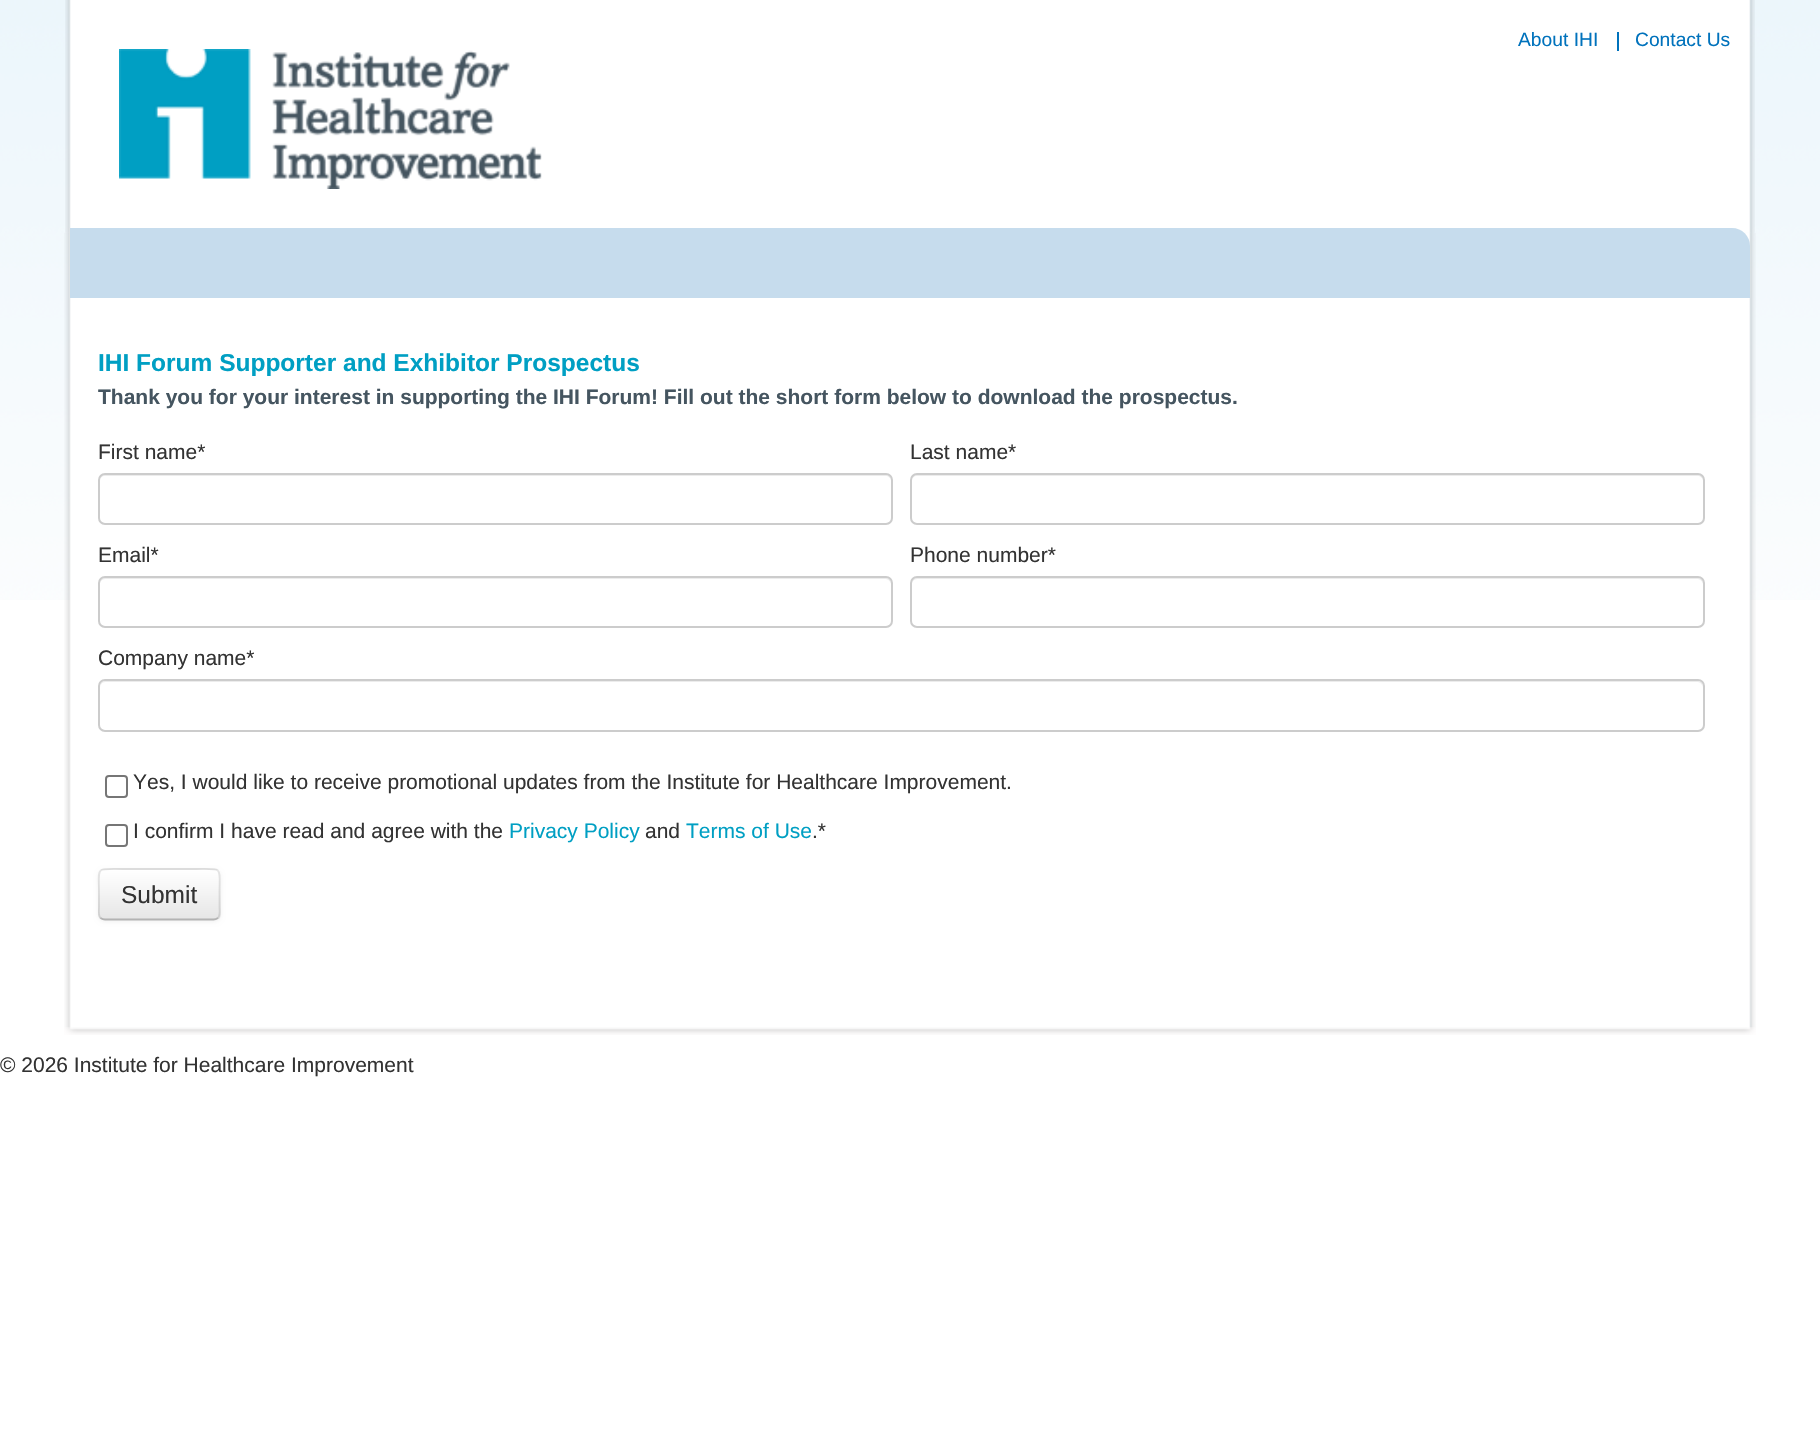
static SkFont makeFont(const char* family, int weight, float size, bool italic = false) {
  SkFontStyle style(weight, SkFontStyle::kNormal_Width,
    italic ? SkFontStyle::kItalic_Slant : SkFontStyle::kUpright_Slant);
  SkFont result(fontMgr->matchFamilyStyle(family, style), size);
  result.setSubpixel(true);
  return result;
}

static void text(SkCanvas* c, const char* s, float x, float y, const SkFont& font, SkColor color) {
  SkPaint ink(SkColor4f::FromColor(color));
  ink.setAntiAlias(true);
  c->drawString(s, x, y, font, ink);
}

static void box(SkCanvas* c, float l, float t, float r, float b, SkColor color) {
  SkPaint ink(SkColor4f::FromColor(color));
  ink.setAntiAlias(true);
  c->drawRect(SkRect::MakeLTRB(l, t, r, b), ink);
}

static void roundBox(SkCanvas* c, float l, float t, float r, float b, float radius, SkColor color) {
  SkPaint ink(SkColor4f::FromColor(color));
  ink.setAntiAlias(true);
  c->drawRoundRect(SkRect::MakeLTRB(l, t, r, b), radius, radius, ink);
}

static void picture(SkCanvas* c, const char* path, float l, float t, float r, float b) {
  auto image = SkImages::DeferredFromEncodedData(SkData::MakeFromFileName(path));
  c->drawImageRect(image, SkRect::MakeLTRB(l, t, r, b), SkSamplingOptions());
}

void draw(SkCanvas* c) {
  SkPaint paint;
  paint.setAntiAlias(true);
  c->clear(0xffffffff);
  picture(c, "img_01.png", 0, 0, 1820, 600);
  picture(c, "img_04.png", 64, 232, 1756, 1035);
  picture(c, "img_02.png", 65, 0, 1755, 233);
  SkFont face1 = makeFont("Liberation Sans", 400, 19.25f);
  text(c, "About IHI", 1518, 46, face1, 0xff0072bc);
  box(c, 1617, 32, 1619, 51, 0xff0072bc);
  text(c, "Contact Us", 1635, 46, face1, 0xff0072bc);
  picture(c, "img_03.png", 119, 49, 542, 189);
  paint.setColor(0xffc6dced);
  c->drawPath(SkPathBuilder().moveTo(70, 228).lineTo(1732, 228).cubicTo(1742, 228, 1750, 236, 1750, 246).lineTo(1750, 298).lineTo(70, 298).close().detach(), paint);
  SkFont face2 = makeFont("Liberation Sans", 700, 24.5f);
  text(c, "IHI Forum Supporter and Exhibitor Prospectus", 98, 371, face2, 0xff009fc3);
  SkFont face3 = makeFont("Liberation Sans", 700, 21);
  text(c, "Thank you for your interest in supporting the IHI Forum! Fill out the short form below to download the prospectus.", 98, 404, face3, 0xff455560);
  SkFont face4 = makeFont("Liberation Sans", 400, 21);
  text(c, "First name*", 98, 459, face4, 0xff333333);
  paint.setColor(0xffececec);
  c->drawPath(SkPathBuilder().moveTo(105, 476).lineTo(886, 476).cubicTo(888, 476, 891, 478, 891, 481).cubicTo(891, 478, 890, 474, 886, 474).lineTo(105, 474).cubicTo(101, 474, 100, 478, 100, 481).cubicTo(100, 478, 102, 476, 105, 476).close().detach(), paint);
  paint.setStyle(SkPaint::kStroke_Style);
  paint.setStrokeWidth(2);
  paint.setColor(0xffcccccc);
  c->drawRoundRect(SkRect::MakeLTRB(99, 474, 892, 524), 6, 6, paint);
  text(c, "Last name*", 910, 459, face4, 0xff333333);
  paint.setStyle(SkPaint::kFill_Style);
  paint.setColor(0xffececec);
  c->drawPath(SkPathBuilder().moveTo(917, 476).lineTo(1698, 476).cubicTo(1700, 476, 1703, 478, 1703, 481).cubicTo(1703, 478, 1702, 474, 1698, 474).lineTo(917, 474).cubicTo(913, 474, 912, 478, 912, 481).cubicTo(912, 478, 914, 476, 917, 476).close().detach(), paint);
  paint.setStyle(SkPaint::kStroke_Style);
  paint.setColor(0xffcccccc);
  c->drawRoundRect(SkRect::MakeLTRB(911, 474, 1704, 524), 6, 6, paint);
  text(c, "Email*", 98, 562, face4, 0xff333333);
  paint.setStyle(SkPaint::kFill_Style);
  paint.setColor(0xffececec);
  c->drawPath(SkPathBuilder().moveTo(105, 579).lineTo(886, 579).cubicTo(888, 579, 891, 582, 891, 584).lineTo(891, 583).cubicTo(891, 580, 889, 578, 886, 578).lineTo(105, 578).cubicTo(102, 578, 100, 580, 100, 583).lineTo(100, 584).cubicTo(100, 582, 102, 579, 105, 579).close().detach(), paint);
  paint.setStyle(SkPaint::kStroke_Style);
  paint.setColor(0xffcccccc);
  c->drawRoundRect(SkRect::MakeLTRB(99, 577, 892, 627), 6, 6, paint);
  text(c, "Phone number*", 910, 562, face4, 0xff333333);
  paint.setStyle(SkPaint::kFill_Style);
  paint.setColor(0xffececec);
  c->drawPath(SkPathBuilder().moveTo(917, 579).lineTo(1698, 579).cubicTo(1700, 579, 1703, 582, 1703, 584).lineTo(1703, 583).cubicTo(1703, 580, 1701, 578, 1698, 578).lineTo(917, 578).cubicTo(914, 578, 912, 580, 912, 583).lineTo(912, 584).cubicTo(912, 582, 914, 579, 917, 579).close().detach(), paint);
  paint.setStyle(SkPaint::kStroke_Style);
  paint.setColor(0xffcccccc);
  c->drawRoundRect(SkRect::MakeLTRB(911, 577, 1704, 627), 6, 6, paint);
  text(c, "Company name*", 98, 665, face4, 0xff333333);
  paint.setStyle(SkPaint::kFill_Style);
  paint.setColor(0xffececec);
  c->drawPath(SkPathBuilder().moveTo(105, 682).lineTo(1698, 682).cubicTo(1700, 682, 1703, 685, 1703, 688).cubicTo(1703, 685, 1702, 681, 1698, 681).lineTo(105, 681).cubicTo(101, 681, 100, 685, 100, 688).cubicTo(100, 685, 102, 682, 105, 682).close().detach(), paint);
  paint.setStyle(SkPaint::kStroke_Style);
  paint.setColor(0xffcccccc);
  c->drawRoundRect(SkRect::MakeLTRB(99, 680, 1704, 731), 6, 6, paint);
  paint.setColor(0xff767676);
  c->drawRoundRect(SkRect::MakeLTRB(106, 776, 127, 797), 3, 3, paint);
  text(c, "Yes, I would like to receive promotional updates from the Institute for Healthcare Improvement.", 133, 789, face4, 0xff333333);
  c->drawRoundRect(SkRect::MakeLTRB(106, 825, 127, 846), 3, 3, paint);
  text(c, "I confirm I have read and agree with the", 133, 838, face4, 0xff333333);
  text(c, "Privacy Policy", 509, 838, face4, 0xff009fc3);
  text(c, "and", 645, 838, face4, 0xff333333);
  text(c, "Terms of Use", 686, 838, face4, 0xff009fc3);
  text(c, ".*", 812, 838, face4, 0xff333333);
  paint.setStyle(SkPaint::kFill_Style);
  paint.setColor(0x0d000000);
  paint.setMaskFilter(SkMaskFilter::MakeBlur(kNormal_SkBlurStyle, 2));
  c->drawRoundRect(SkRect::MakeLTRB(98, 870, 221, 922), 7, 7, paint);
  paint.setMaskFilter(nullptr);
  roundBox(c, 98, 868, 221, 921, 7, 0xfff5f5f5);
  c->save();
  c->clipPath(SkPathBuilder().moveTo(105, 868).lineTo(214, 868).cubicTo(218, 868, 221, 871, 221, 875).lineTo(221, 914).cubicTo(221, 918, 218, 921, 214, 921).lineTo(105, 921).cubicTo(101, 921, 98, 918, 98, 914).lineTo(98, 875).cubicTo(98, 871, 101, 868, 105, 868).close().detach(), true);
  {
    const SkColor colors[] = {0xffffffff, 0xffe6e6e6};
    const float stops[] = {0, 1};
    const SkPoint ends[] = {{159, 870}, {159, 919}};
    paint.setShader(SkGradientShader::MakeLinear(ends, colors, stops, 2, SkTileMode::kClamp));
    paint.setAlpha(255);
  }
  c->drawRect(SkRect::MakeLTRB(98, 870, 221, 919), paint);
  c->restore();
  paint.setStyle(SkPaint::kStroke_Style);
  paint.setStrokeWidth(1.8f);
  paint.setShader(nullptr);
  paint.setColor(0xffb3b3b3);
  c->drawPath(SkPathBuilder().moveTo(218, 918).cubicTo(216.5f, 919, 215, 919.5f, 213.5f, 919.5f).lineTo(105, 919.5f).cubicTo(103.5f, 919.5f, 102, 919, 100.5f, 918).detach(), paint);
  paint.setColor(0x1a000000);
  c->drawPath(SkPathBuilder().moveTo(100.5f, 918).cubicTo(98, 915, 99, 910.5f, 99, 907).lineTo(99, 894).cubicTo(99, 866, 94.5f, 869, 123, 869).lineTo(195.5f, 869).cubicTo(224, 869, 219.5f, 866, 219.5f, 894).lineTo(219.5f, 907).cubicTo(219.5f, 910.5f, 220.5f, 915, 218, 918).detach(), paint);
  SkFont face5 = makeFont("Liberation Sans", 400, 24.5f);
  text(c, "Submit", 121, 903, face5, 0xff333333);
  text(c, "© 2026 Institute for Healthcare Improvement", 0, 1072, face4, 0xff333333);
}
